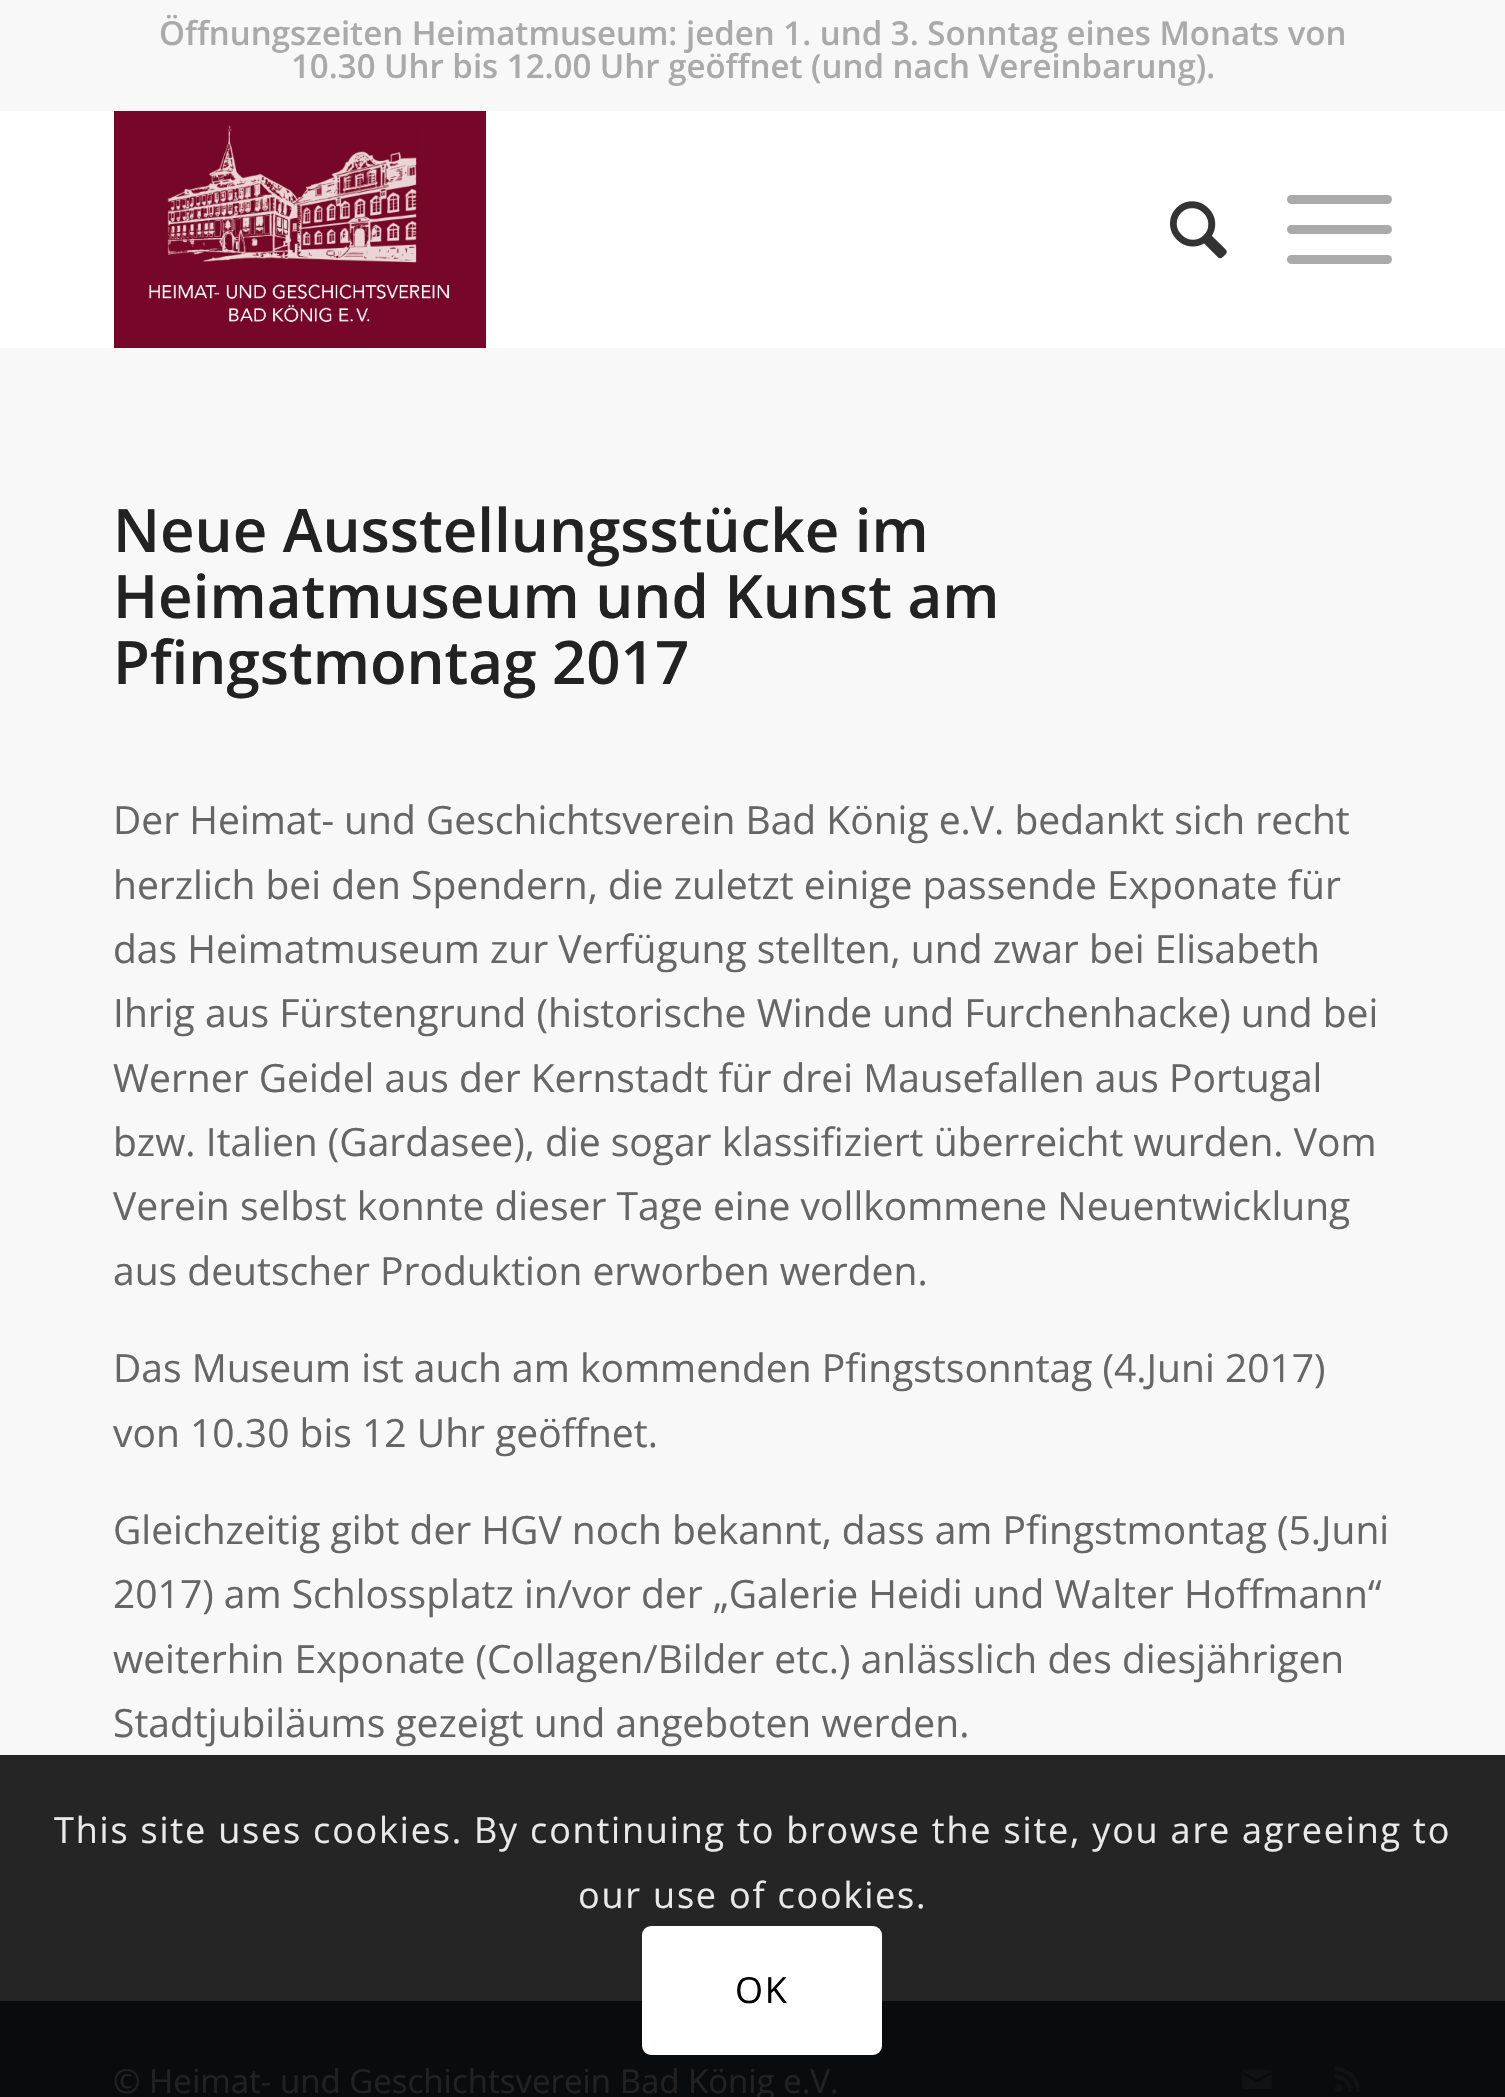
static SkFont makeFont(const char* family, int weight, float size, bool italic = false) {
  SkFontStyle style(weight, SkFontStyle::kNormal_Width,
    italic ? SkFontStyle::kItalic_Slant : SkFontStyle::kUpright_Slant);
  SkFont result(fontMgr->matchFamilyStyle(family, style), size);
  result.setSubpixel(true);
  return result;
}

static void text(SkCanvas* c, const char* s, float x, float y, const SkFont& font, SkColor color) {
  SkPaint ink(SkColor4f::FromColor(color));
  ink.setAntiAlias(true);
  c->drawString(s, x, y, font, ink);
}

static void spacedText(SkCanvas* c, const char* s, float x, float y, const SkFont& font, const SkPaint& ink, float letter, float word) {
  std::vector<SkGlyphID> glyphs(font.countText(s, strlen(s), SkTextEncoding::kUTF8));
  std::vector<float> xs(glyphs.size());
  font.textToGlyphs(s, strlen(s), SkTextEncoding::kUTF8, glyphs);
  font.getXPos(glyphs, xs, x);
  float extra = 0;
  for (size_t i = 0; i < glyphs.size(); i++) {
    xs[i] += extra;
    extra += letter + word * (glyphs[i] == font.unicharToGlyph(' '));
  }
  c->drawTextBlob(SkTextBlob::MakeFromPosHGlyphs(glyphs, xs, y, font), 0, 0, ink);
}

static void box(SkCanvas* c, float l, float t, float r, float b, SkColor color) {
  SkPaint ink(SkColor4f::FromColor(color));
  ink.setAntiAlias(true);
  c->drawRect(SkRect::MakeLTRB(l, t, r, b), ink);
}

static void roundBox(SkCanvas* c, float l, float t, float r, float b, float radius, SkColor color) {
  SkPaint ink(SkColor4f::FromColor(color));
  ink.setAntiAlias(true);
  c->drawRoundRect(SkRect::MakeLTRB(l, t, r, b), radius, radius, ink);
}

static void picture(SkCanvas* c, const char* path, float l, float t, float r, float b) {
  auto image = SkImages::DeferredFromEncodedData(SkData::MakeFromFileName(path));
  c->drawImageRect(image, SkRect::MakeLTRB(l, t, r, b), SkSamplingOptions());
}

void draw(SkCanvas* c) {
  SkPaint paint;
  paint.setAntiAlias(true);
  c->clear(0xfff8f8f8);
  SkFont face1 = makeFont("Open Sans", 600, 33);
  text(c, "Öffnungszeiten Heimatmuseum: jeden 1. und 3. Sonntag eines Monats von", 159, 45, face1, 0xffaaaaaa);
  text(c, "10.30 Uhr bis 12.00 Uhr geöffnet (und nach Vereinbarung).", 291, 78, face1, 0xffaaaaaa);
  box(c, 0, 111, 1505, 348, 0xffffffff);
  picture(c, "img_01.png", 114, 111, 486, 348);
  picture(c, "img_02.png", 1170, 201, 1227, 259);
  roundBox(c, 1287, 225, 1392, 234, 4.5f, 0xffaaaaaa);
  roundBox(c, 1287, 195, 1392, 204, 4.5f, 0xffaaaaaa);
  roundBox(c, 1287, 255, 1392, 264, 4.5f, 0xffaaaaaa);
  box(c, 0, 1755, 1505, 2001, 0xff252525);
  SkFont face2 = makeFont("Open Sans", 600, 60);
  text(c, "Neue Ausstellungsstücke im", 113, 552, face2, 0xff222222);
  text(c, "Heimatmuseum und Kunst am", 113, 618, face2, 0xff222222);
  text(c, "Pfingstmontag 2017", 113, 684, face2, 0xff222222);
  SkFont face3 = makeFont("Open Sans", 400, 39);
  text(c, "Der Heimat- und Geschichtsverein Bad König e.V. bedankt sich recht", 113, 834, face3, 0xff666666);
  text(c, "herzlich bei den Spendern, die zuletzt einige passende Exponate für", 113, 899, face3, 0xff666666);
  text(c, "das Heimatmuseum zur Verfügung stellten, und zwar bei Elisabeth", 113, 963, face3, 0xff666666);
  text(c, "Ihrig aus Fürstengrund (historische Winde und Furchenhacke) und bei", 113, 1027, face3, 0xff666666);
  text(c, "Werner Geidel aus der Kernstadt für drei Mausefallen aus Portugal", 113, 1092, face3, 0xff666666);
  text(c, "bzw. Italien (Gardasee), die sogar klassifiziert überreicht wurden. Vom", 113, 1156, face3, 0xff666666);
  text(c, "Verein selbst konnte dieser Tage eine vollkommene Neuentwicklung", 113, 1220, face3, 0xff666666);
  text(c, "aus deutscher Produktion erworben werden.", 113, 1285, face3, 0xff666666);
  text(c, "Das Museum ist auch am kommenden Pfingstsonntag (4.Juni 2017)", 113, 1382, face3, 0xff666666);
  text(c, "von 10.30 bis 12 Uhr geöffnet.", 113, 1447, face3, 0xff666666);
  text(c, "Gleichzeitig gibt der HGV noch bekannt, dass am Pfingstmontag (5.Juni", 113, 1544, face3, 0xff666666);
  text(c, "2017) am Schlossplatz in/vor der „Galerie Heidi und Walter Hoffmann“", 113, 1608, face3, 0xff666666);
  text(c, "weiterhin Exponate (Collagen/Bilder etc.) anlässlich des diesjährigen", 113, 1673, face3, 0xff666666);
  text(c, "Stadtjubiläums gezeigt und angeboten werden.", 113, 1737, face3, 0xff666666);
  box(c, 0, 2001, 1505, 2097, 0xff090c0e);
  SkFont face4 = makeFont("Open Sans", 400, 33);
  text(c, "© Heimat- und Geschichtsverein Bad König e.V.", 113, 2093, face4, 0xff222222);
  picture(c, "img_03.png", 1242, 2069, 1272, 2089);
  picture(c, "img_04.png", 1335, 2067, 1360, 2092);
  SkFont face5 = makeFont("Open Sans", 400, 36);
  paint.setColor(0xffe9e9e9);
  spacedText(c, "This site uses cookies. By continuing to browse the site, you are agreeing to", 54, 1843, face5, paint, 1.8f, 0);
  spacedText(c, "our use of cookies.", 578, 1908, face5, paint, 1.8f, 0);
  roundBox(c, 642, 1926, 882, 2055, 9, 0xffffffff);
  paint.setColor(0xff000000);
  spacedText(c, "OK", 735, 2003, face5, paint, 1.8f, 0);
}
